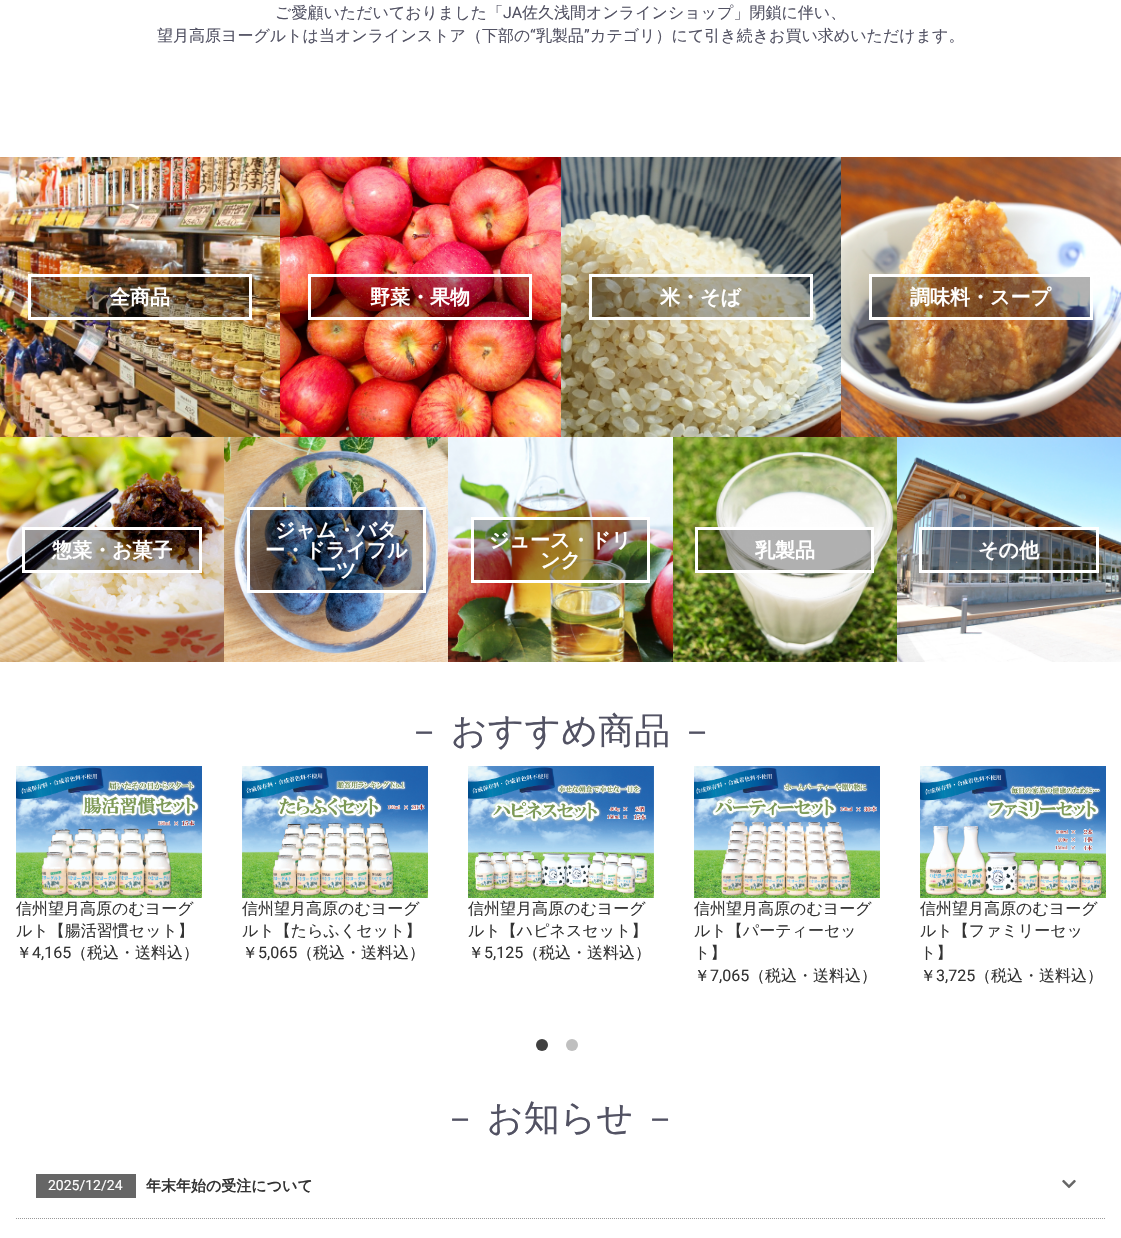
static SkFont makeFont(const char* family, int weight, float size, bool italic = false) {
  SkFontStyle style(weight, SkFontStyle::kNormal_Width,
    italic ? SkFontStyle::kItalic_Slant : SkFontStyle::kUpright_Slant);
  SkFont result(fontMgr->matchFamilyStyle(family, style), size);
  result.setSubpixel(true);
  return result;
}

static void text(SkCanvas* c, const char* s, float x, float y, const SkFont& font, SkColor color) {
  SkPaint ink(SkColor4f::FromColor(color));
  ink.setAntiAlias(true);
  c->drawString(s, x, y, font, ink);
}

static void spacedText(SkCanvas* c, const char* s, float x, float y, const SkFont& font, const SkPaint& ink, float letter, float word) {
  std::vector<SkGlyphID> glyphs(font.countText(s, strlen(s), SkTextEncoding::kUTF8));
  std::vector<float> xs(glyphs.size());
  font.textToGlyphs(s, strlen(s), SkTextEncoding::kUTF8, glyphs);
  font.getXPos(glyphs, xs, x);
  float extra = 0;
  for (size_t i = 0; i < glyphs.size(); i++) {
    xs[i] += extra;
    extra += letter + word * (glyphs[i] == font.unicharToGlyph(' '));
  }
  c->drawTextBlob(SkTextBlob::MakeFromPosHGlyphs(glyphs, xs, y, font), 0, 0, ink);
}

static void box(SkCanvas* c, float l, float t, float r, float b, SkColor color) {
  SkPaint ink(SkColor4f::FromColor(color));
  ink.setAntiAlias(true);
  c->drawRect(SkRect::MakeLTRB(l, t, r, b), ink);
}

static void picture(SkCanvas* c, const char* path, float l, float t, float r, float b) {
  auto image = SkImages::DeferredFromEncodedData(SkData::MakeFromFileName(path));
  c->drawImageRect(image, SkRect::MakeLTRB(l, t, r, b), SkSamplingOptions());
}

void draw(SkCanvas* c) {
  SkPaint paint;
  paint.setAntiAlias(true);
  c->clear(0xffffffff);
  SkFont face1 = makeFont("WenQuanYi Zen Hei", 500, 16);
  text(c, "ご愛顧いただいておりました「", 275, 18, face1, 0xff525263);
  SkFont face2 = makeFont("Roboto", 400, 16);
  text(c, "JA", 503, 18, face2, 0xff525263);
  text(c, "佐久浅間オンラインショップ」閉鎖に伴い、", 522, 18, face1, 0xff525263);
  text(c, "望月高原ヨーグルトは当オンラインストア（下部の", 157, 41, face1, 0xff525263);
  text(c, "“", 530, 41, face2, 0xff525263);
  text(c, "乳製品", 536, 41, face1, 0xff525263);
  text(c, "”", 584, 41, face2, 0xff525263);
  text(c, "カテゴリ）にて引き続きお買い求めいただけます。", 590, 41, face1, 0xff525263);
  picture(c, "img_01.png", 0, 157, 280, 437);
  paint.setColor(0x4d000000);
  c->drawRect(SkRect::MakeLTRB(29.5f, 275.5f, 250.5f, 318.5f), paint);
  paint.setStyle(SkPaint::kStroke_Style);
  paint.setStrokeWidth(3);
  paint.setColor(0xffffffff);
  c->drawRect(SkRect::MakeLTRB(29.5f, 275.5f, 250.5f, 318.5f), paint);
  SkFont face3 = makeFont("WenQuanYi Zen Hei", 700, 20);
  text(c, "全商品", 110, 304, face3, 0xffffffff);
  picture(c, "img_02.png", 280, 157, 561, 437);
  paint.setStyle(SkPaint::kFill_Style);
  paint.setColor(0x4d000000);
  c->drawRect(SkRect::MakeLTRB(309.5f, 275.5f, 530.5f, 318.5f), paint);
  paint.setStyle(SkPaint::kStroke_Style);
  paint.setColor(0xffffffff);
  c->drawRect(SkRect::MakeLTRB(309.5f, 275.5f, 530.5f, 318.5f), paint);
  text(c, "野菜・果物", 370, 304, face3, 0xffffffff);
  picture(c, "img_03.png", 561, 157, 841, 437);
  paint.setStyle(SkPaint::kFill_Style);
  paint.setColor(0x4d000000);
  c->drawRect(SkRect::MakeLTRB(590.5f, 275.5f, 811.5f, 318.5f), paint);
  paint.setStyle(SkPaint::kStroke_Style);
  paint.setColor(0xffffffff);
  c->drawRect(SkRect::MakeLTRB(590.5f, 275.5f, 811.5f, 318.5f), paint);
  text(c, "米・そば", 660, 304, face3, 0xffffffff);
  picture(c, "img_04.png", 841, 157, 1121, 437);
  paint.setStyle(SkPaint::kFill_Style);
  paint.setColor(0x4d000000);
  c->drawRect(SkRect::MakeLTRB(870.5f, 275.5f, 1091.5f, 318.5f), paint);
  paint.setStyle(SkPaint::kStroke_Style);
  paint.setColor(0xffffffff);
  c->drawRect(SkRect::MakeLTRB(870.5f, 275.5f, 1091.5f, 318.5f), paint);
  text(c, "調味料・スープ", 910, 304, face3, 0xffffffff);
  picture(c, "img_05.png", 0, 437, 224, 662);
  paint.setStyle(SkPaint::kFill_Style);
  paint.setColor(0x4d000000);
  c->drawRect(SkRect::MakeLTRB(23.5f, 528.5f, 200.5f, 571.5f), paint);
  paint.setStyle(SkPaint::kStroke_Style);
  paint.setColor(0xffffffff);
  c->drawRect(SkRect::MakeLTRB(23.5f, 528.5f, 200.5f, 571.5f), paint);
  text(c, "惣菜・お菓子", 52, 557, face3, 0xffffffff);
  picture(c, "img_06.png", 224, 437, 448, 662);
  paint.setStyle(SkPaint::kFill_Style);
  paint.setColor(0x4d000000);
  c->drawRect(SkRect::MakeLTRB(248.5f, 508.5f, 424.5f, 591.5f), paint);
  paint.setStyle(SkPaint::kStroke_Style);
  paint.setColor(0xffffffff);
  c->drawRect(SkRect::MakeLTRB(248.5f, 508.5f, 424.5f, 591.5f), paint);
  text(c, "ジャム・バタ", 275, 537, face3, 0xffffffff);
  text(c, "ー・ドライフル", 265, 557, face3, 0xffffffff);
  text(c, "ーツ", 316, 577, face3, 0xffffffff);
  picture(c, "img_07.png", 448, 437, 673, 662);
  paint.setStyle(SkPaint::kFill_Style);
  paint.setColor(0x4d000000);
  c->drawRect(SkRect::MakeLTRB(472.5f, 518.5f, 648.5f, 581.5f), paint);
  paint.setStyle(SkPaint::kStroke_Style);
  paint.setColor(0xffffffff);
  c->drawRect(SkRect::MakeLTRB(472.5f, 518.5f, 648.5f, 581.5f), paint);
  text(c, "ジュース・ドリ", 489, 547, face3, 0xffffffff);
  text(c, "ンク", 540, 567, face3, 0xffffffff);
  picture(c, "img_08.png", 673, 437, 897, 662);
  paint.setStyle(SkPaint::kFill_Style);
  paint.setColor(0x4d000000);
  c->drawRect(SkRect::MakeLTRB(696.5f, 528.5f, 872.5f, 571.5f), paint);
  paint.setStyle(SkPaint::kStroke_Style);
  paint.setColor(0xffffffff);
  c->drawRect(SkRect::MakeLTRB(696.5f, 528.5f, 872.5f, 571.5f), paint);
  text(c, "乳製品", 755, 557, face3, 0xffffffff);
  picture(c, "img_09.png", 897, 437, 1121, 662);
  paint.setStyle(SkPaint::kFill_Style);
  paint.setColor(0x4d000000);
  c->drawRect(SkRect::MakeLTRB(920.5f, 528.5f, 1097.5f, 571.5f), paint);
  paint.setStyle(SkPaint::kStroke_Style);
  paint.setColor(0xffffffff);
  c->drawRect(SkRect::MakeLTRB(920.5f, 528.5f, 1097.5f, 571.5f), paint);
  text(c, "その他", 978, 557, face3, 0xffffffff);
  SkFont face4 = makeFont("WenQuanYi Zen Hei", 500, 36);
  paint.setStyle(SkPaint::kFill_Style);
  paint.setColor(0xff525263);
  spacedText(c, "－ おすすめ商品 －", 406, 743, face4, paint, 0, -2);
  picture(c, "img_10.png", 16, 766, 202, 898);
  text(c, "信州望月高原のむヨーグ", 16, 914, face1, 0xff333333);
  text(c, "ルト【腸活習慣セット】", 16, 936, face1, 0xff333333);
  text(c, "￥", 16, 958, face1, 0xff333333);
  text(c, "4,165", 32, 958, face2, 0xff333333);
  text(c, "（税込・送料込）", 71, 958, face1, 0xff333333);
  picture(c, "img_11.png", 242, 766, 428, 898);
  text(c, "信州望月高原のむヨーグ", 242, 914, face1, 0xff333333);
  text(c, "ルト【たらふくセット】", 242, 936, face1, 0xff333333);
  text(c, "￥", 242, 958, face1, 0xff333333);
  text(c, "5,065", 258, 958, face2, 0xff333333);
  text(c, "（税込・送料込）", 297, 958, face1, 0xff333333);
  picture(c, "img_12.png", 468, 766, 654, 898);
  text(c, "信州望月高原のむヨーグ", 468, 914, face1, 0xff333333);
  text(c, "ルト【ハピネスセット】", 468, 936, face1, 0xff333333);
  text(c, "￥", 468, 958, face1, 0xff333333);
  text(c, "5,125", 484, 958, face2, 0xff333333);
  text(c, "（税込・送料込）", 523, 958, face1, 0xff333333);
  picture(c, "img_13.png", 694, 766, 880, 898);
  text(c, "信州望月高原のむヨーグ", 694, 914, face1, 0xff333333);
  text(c, "ルト【パーティーセッ", 694, 936, face1, 0xff333333);
  text(c, "ト】", 694, 958, face1, 0xff333333);
  text(c, "￥", 694, 981, face1, 0xff333333);
  text(c, "7,065", 710, 981, face2, 0xff333333);
  text(c, "（税込・送料込）", 749, 981, face1, 0xff333333);
  picture(c, "img_14.png", 920, 766, 1106, 898);
  text(c, "信州望月高原のむヨーグ", 920, 914, face1, 0xff333333);
  text(c, "ルト【ファミリーセッ", 920, 936, face1, 0xff333333);
  text(c, "ト】", 920, 958, face1, 0xff333333);
  text(c, "￥", 920, 981, face1, 0xff333333);
  text(c, "3,725", 936, 981, face2, 0xff333333);
  text(c, "（税込・送料込）", 975, 981, face1, 0xff333333);
  paint.setColor(0xff404040);
  c->drawCircle(542, 1045, 6, paint);
  paint.setColor(0xffbfbfbf);
  c->drawCircle(572, 1045, 6, paint);
  paint.setColor(0xff525263);
  spacedText(c, "－ お知らせ －", 442, 1130, face4, paint, 0, -2);
  paint.setStyle(SkPaint::kStroke_Style);
  paint.setStrokeWidth(1);
  paint.setColor(0xff999999);
  paint.setPathEffect(SkDashPathEffect::Make({{1, 1}}, 0));
  c->drawPath(SkPathBuilder().moveTo(16, 1218.5f).lineTo(1106, 1218.5f).detach(), paint);
  paint.setPathEffect(nullptr);
  box(c, 36, 1174, 136, 1198, 0xff666666);
  SkFont face5 = makeFont("Roboto", 400, 14);
  text(c, "2025/12/24", 48, 1190, face5, 0xffffffff);
  SkFont face6 = makeFont("WenQuanYi Zen Hei", 700, 15);
  text(c, "年末年始の受注について", 146, 1191, face6, 0xff333333);
  picture(c, "img_15.png", 1062, 1179, 1076, 1189);
}
